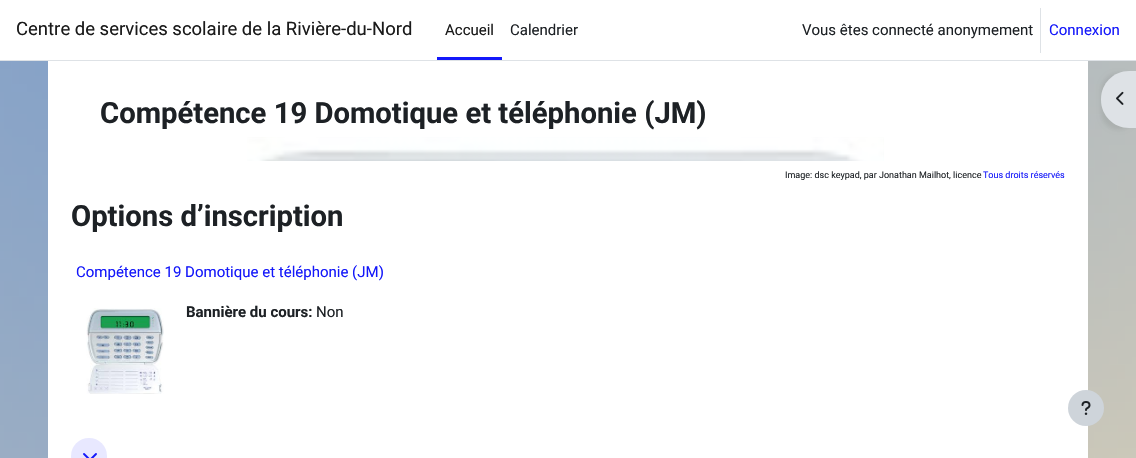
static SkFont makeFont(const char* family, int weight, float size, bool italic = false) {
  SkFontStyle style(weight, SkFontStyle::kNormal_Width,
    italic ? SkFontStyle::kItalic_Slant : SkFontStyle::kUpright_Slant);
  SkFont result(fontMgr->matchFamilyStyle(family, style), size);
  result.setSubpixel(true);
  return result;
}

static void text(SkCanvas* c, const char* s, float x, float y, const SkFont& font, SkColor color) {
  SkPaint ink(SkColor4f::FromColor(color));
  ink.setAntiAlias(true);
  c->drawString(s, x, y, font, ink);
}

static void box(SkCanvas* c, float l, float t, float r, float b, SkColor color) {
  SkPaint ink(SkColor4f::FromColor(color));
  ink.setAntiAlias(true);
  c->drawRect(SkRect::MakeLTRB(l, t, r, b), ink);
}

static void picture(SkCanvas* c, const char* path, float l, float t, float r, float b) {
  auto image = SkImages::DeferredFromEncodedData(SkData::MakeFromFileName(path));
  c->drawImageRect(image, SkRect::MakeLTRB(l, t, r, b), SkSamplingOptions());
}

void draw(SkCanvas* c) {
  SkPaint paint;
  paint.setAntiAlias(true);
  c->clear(0xffffffff);
  picture(c, "img_01.png", 0, 61, 1136, 458);
  box(c, 0, 60, 1136, 61, 0xffdee2e6);
  SkFont face1 = makeFont("Roboto", 400, 18.5f);
  text(c, "Centre de services scolaire de la Rivière-du-Nord", 16, 35, face1, 0xff1a1a1a);
  box(c, 437, 57, 502, 60, 0xff1418fa);
  SkFont face2 = makeFont("Roboto", 400, 15);
  text(c, "Accueil", 445, 35, face2, 0xff1a1a1a);
  text(c, "Calendrier", 510, 35, face2, 0xff1d2125);
  text(c, "Vous êtes connecté anonymement", 802, 35, face2, 0xff1d2125);
  box(c, 1040, 8, 1041, 53, 0xffdee2e6);
  text(c, "Connexion", 1049, 35, face2, 0xff1418fa);
  box(c, 48, 61, 1088, 458, 0xffffffff);
  picture(c, "img_02.png", 247, 137, 884, 161);
  box(c, 247, 138, 883, 161, 0x80ffffff);
  SkFont face3 = makeFont("Roboto", 700, 29.25f);
  text(c, "Compétence 19 Domotique et téléphonie (JM)", 100, 123, face3, 0xff1d2125);
  SkFont face4 = makeFont("Roboto", 400, 9);
  text(c, "Image: dsc keypad, par Jonathan Mailhot, licence", 785, 178, face4, 0xff1d2125);
  text(c, "Tous droits réservés", 983, 178, face4, 0xff1418fa);
  paint.setColor(0x12000000);
  paint.setMaskFilter(SkMaskFilter::MakeBlur(kNormal_SkBlurStyle, 2));
  c->drawRoundRect(SkRect::MakeLTRB(1101, 73, 1136, 130), 28, 28, paint);
  paint.setMaskFilter(nullptr);
  paint.setColor(0xffdee2e6);
  c->drawPath(SkPathBuilder().moveTo(1129, 71).lineTo(1136, 71).lineTo(1136, 128).lineTo(1129, 128).cubicTo(1113.5f, 128, 1101, 115.5f, 1101, 100).lineTo(1101, 99).cubicTo(1101, 83.5f, 1113.5f, 71, 1129, 71).close().detach(), paint);
  picture(c, "img_03.png", 1116, 91, 1124, 105);
  text(c, "Options d’inscription", 71, 226, face3, 0xff1d2125);
  text(c, "Compétence 19 Domotique et téléphonie (JM)", 76, 277, face2, 0xff1418fa);
  picture(c, "img_04.png", 86, 308, 164, 394);
  SkFont face5 = makeFont("Roboto", 700, 15);
  text(c, "Bannière du cours:", 186, 317, face5, 0xff1d2125);
  text(c, "Non", 316, 317, face2, 0xff1d2125);
  paint.setColor(0xffe8e8ff);
  c->drawCircle(89, 456, 18, paint);
  picture(c, "img_05.png", 83, 453, 97, 458);
  paint.setColor(0xffced4da);
  c->drawCircle(1086, 408, 18, paint);
  picture(c, "img_06.png", 1081, 401, 1091, 415);
}
